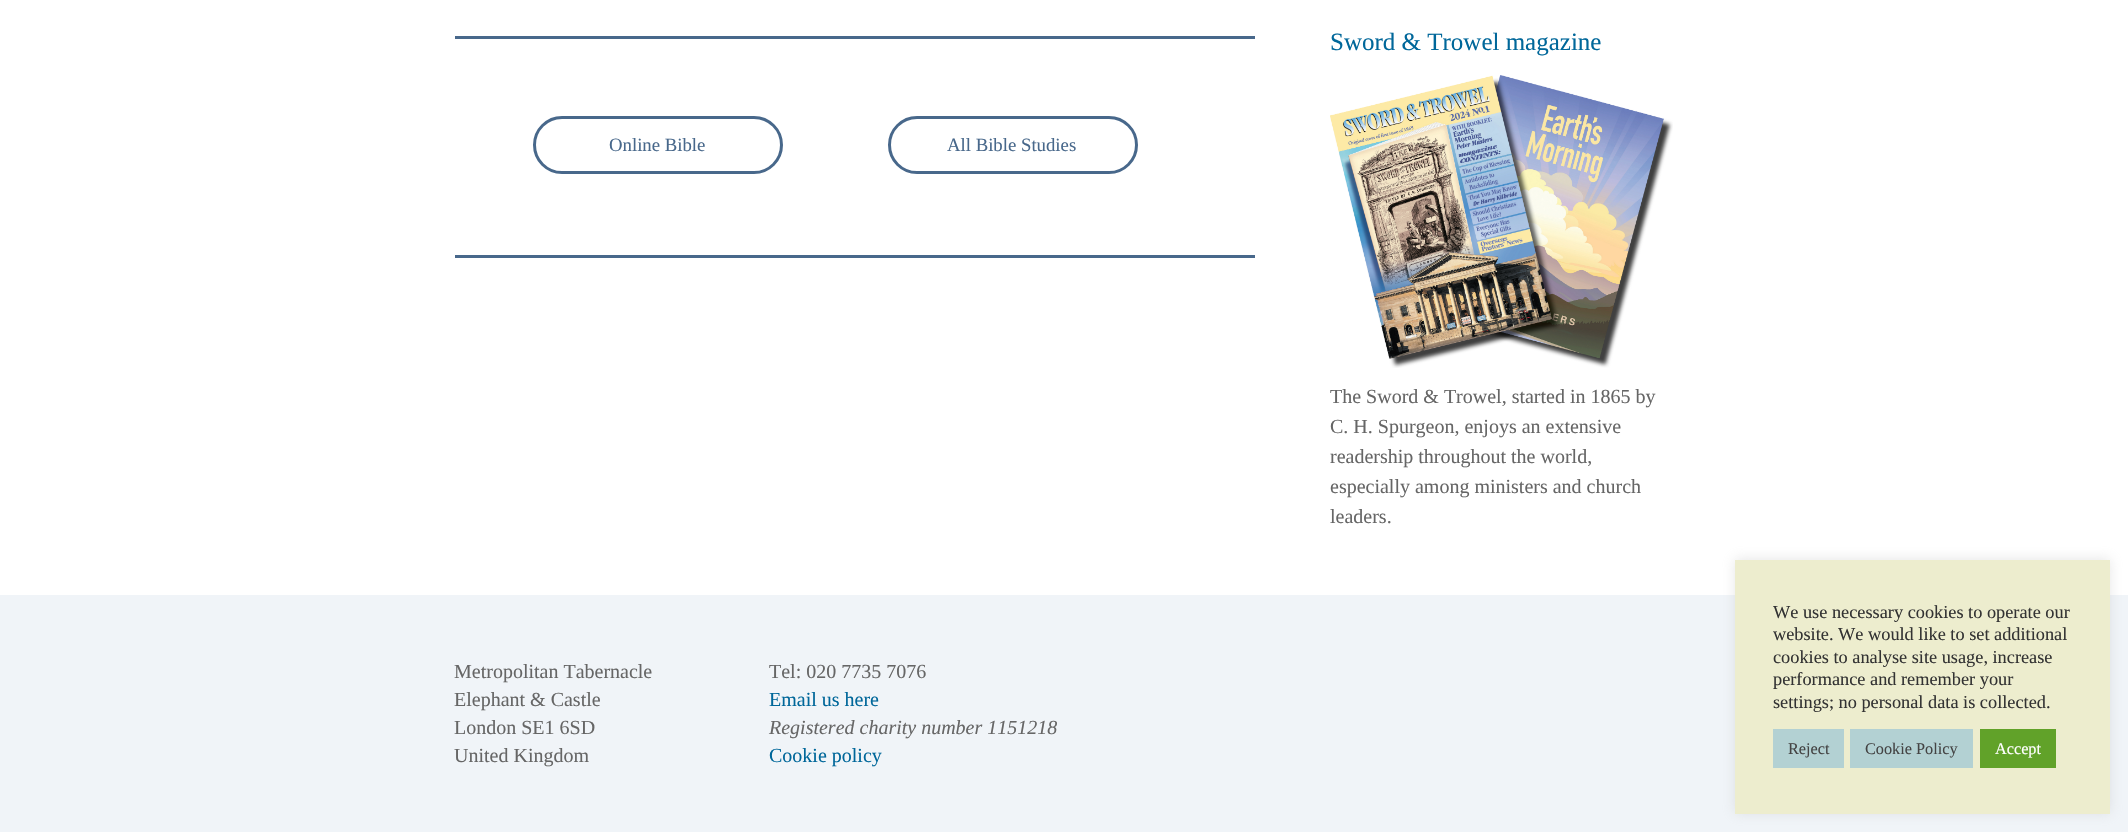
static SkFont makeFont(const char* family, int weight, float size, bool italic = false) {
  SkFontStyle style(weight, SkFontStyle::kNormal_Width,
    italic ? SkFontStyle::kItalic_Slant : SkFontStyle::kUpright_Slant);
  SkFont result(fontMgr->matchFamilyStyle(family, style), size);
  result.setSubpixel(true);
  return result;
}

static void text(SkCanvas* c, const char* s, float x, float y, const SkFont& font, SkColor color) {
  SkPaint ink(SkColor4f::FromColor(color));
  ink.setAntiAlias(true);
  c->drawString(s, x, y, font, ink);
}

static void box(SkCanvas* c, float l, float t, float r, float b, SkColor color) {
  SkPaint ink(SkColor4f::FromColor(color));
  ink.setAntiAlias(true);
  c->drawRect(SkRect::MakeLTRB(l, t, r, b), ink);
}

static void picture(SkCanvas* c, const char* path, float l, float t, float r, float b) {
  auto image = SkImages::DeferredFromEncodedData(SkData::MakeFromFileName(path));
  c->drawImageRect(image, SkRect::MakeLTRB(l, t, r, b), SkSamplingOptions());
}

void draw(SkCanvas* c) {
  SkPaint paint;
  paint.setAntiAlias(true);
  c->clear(0xffffffff);
  box(c, 455, 36, 1255, 39, 0xff48688b);
  paint.setStyle(SkPaint::kStroke_Style);
  paint.setStrokeWidth(3);
  paint.setColor(0xff48688b);
  c->drawRoundRect(SkRect::MakeLTRB(534.5f, 117.5f, 781.5f, 172.5f), 27.5f, 27.5f, paint);
  SkFont face1 = makeFont("Liberation Serif", 400, 18.75f);
  text(c, "Online Bible", 609, 151, face1, 0xff48688b);
  c->drawRoundRect(SkRect::MakeLTRB(889.5f, 117.5f, 1136.5f, 172.5f), 27.5f, 27.5f, paint);
  text(c, "All Bible Studies", 947, 151, face1, 0xff48688b);
  box(c, 455, 255, 1255, 258, 0xff48688b);
  SkFont face2 = makeFont("Liberation Serif", 400, 25);
  text(c, "Sword & Trowel magazine", 1330, 50, face2, 0xff00679a);
  picture(c, "img_01.png", 1330, 75, 1673, 368);
  SkFont face3 = makeFont("Liberation Serif", 400, 20);
  text(c, "The Sword & Trowel, started in 1865 by", 1330, 403, face3, 0xff666666);
  text(c, "C. H. Spurgeon, enjoys an extensive", 1330, 433, face3, 0xff666666);
  text(c, "readership throughout the world,", 1330, 463, face3, 0xff666666);
  text(c, "especially among ministers and church", 1330, 493, face3, 0xff666666);
  text(c, "leaders.", 1330, 523, face3, 0xff666666);
  box(c, 0, 595, 2128, 832, 0xfff0f4f8);
  text(c, "Metropolitan Tabernacle", 454, 678, face3, 0xff666666);
  text(c, "Elephant & Castle", 454, 706, face3, 0xff666666);
  text(c, "London SE1 6SD", 454, 734, face3, 0xff666666);
  text(c, "United Kingdom", 454, 762, face3, 0xff666666);
  text(c, "Tel: 020 7735 7076", 769, 678, face3, 0xff666666);
  text(c, "Email us here", 769, 706, face3, 0xff00679a);
  SkFont face4 = makeFont("Liberation Serif", 400, 20, true);
  text(c, "Registered charity number 1151218", 769, 734, face4, 0xff666666);
  text(c, "Cookie policy", 769, 762, face3, 0xff00679a);
  paint.setStyle(SkPaint::kFill_Style);
  paint.setColor(0x4dacabab);
  paint.setMaskFilter(SkMaskFilter::MakeBlur(kNormal_SkBlurStyle, 6));
  c->drawRect(SkRect::MakeLTRB(1735, 559, 2110, 813), paint);
  paint.setMaskFilter(nullptr);
  box(c, 1735, 560, 2110, 814, 0xffededce);
  SkFont face5 = makeFont("Liberation Serif", 400, 18.3f);
  text(c, "We use necessary cookies to operate our", 1773, 618, face5, 0xff333333);
  text(c, "website. We would like to set additional", 1773, 640, face5, 0xff333333);
  text(c, "cookies to analyse site usage, increase", 1773, 663, face5, 0xff333333);
  text(c, "performance and remember your", 1773, 685, face5, 0xff333333);
  text(c, "settings; no personal data is collected.", 1773, 708, face5, 0xff333333);
  box(c, 1773, 729, 1844, 768, 0xffb3d1d3);
  SkFont face6 = makeFont("Liberation Serif", 400, 16.25f);
  text(c, "Reject", 1788, 754, face6, 0xff444444);
  box(c, 1850, 729, 1973, 768, 0xffb3d1d3);
  text(c, "Cookie Policy", 1865, 754, face6, 0xff444444);
  box(c, 1980, 729, 2056, 768, 0xff61a229);
  text(c, "Accept", 1995, 754, face6, 0xffffffff);
}
